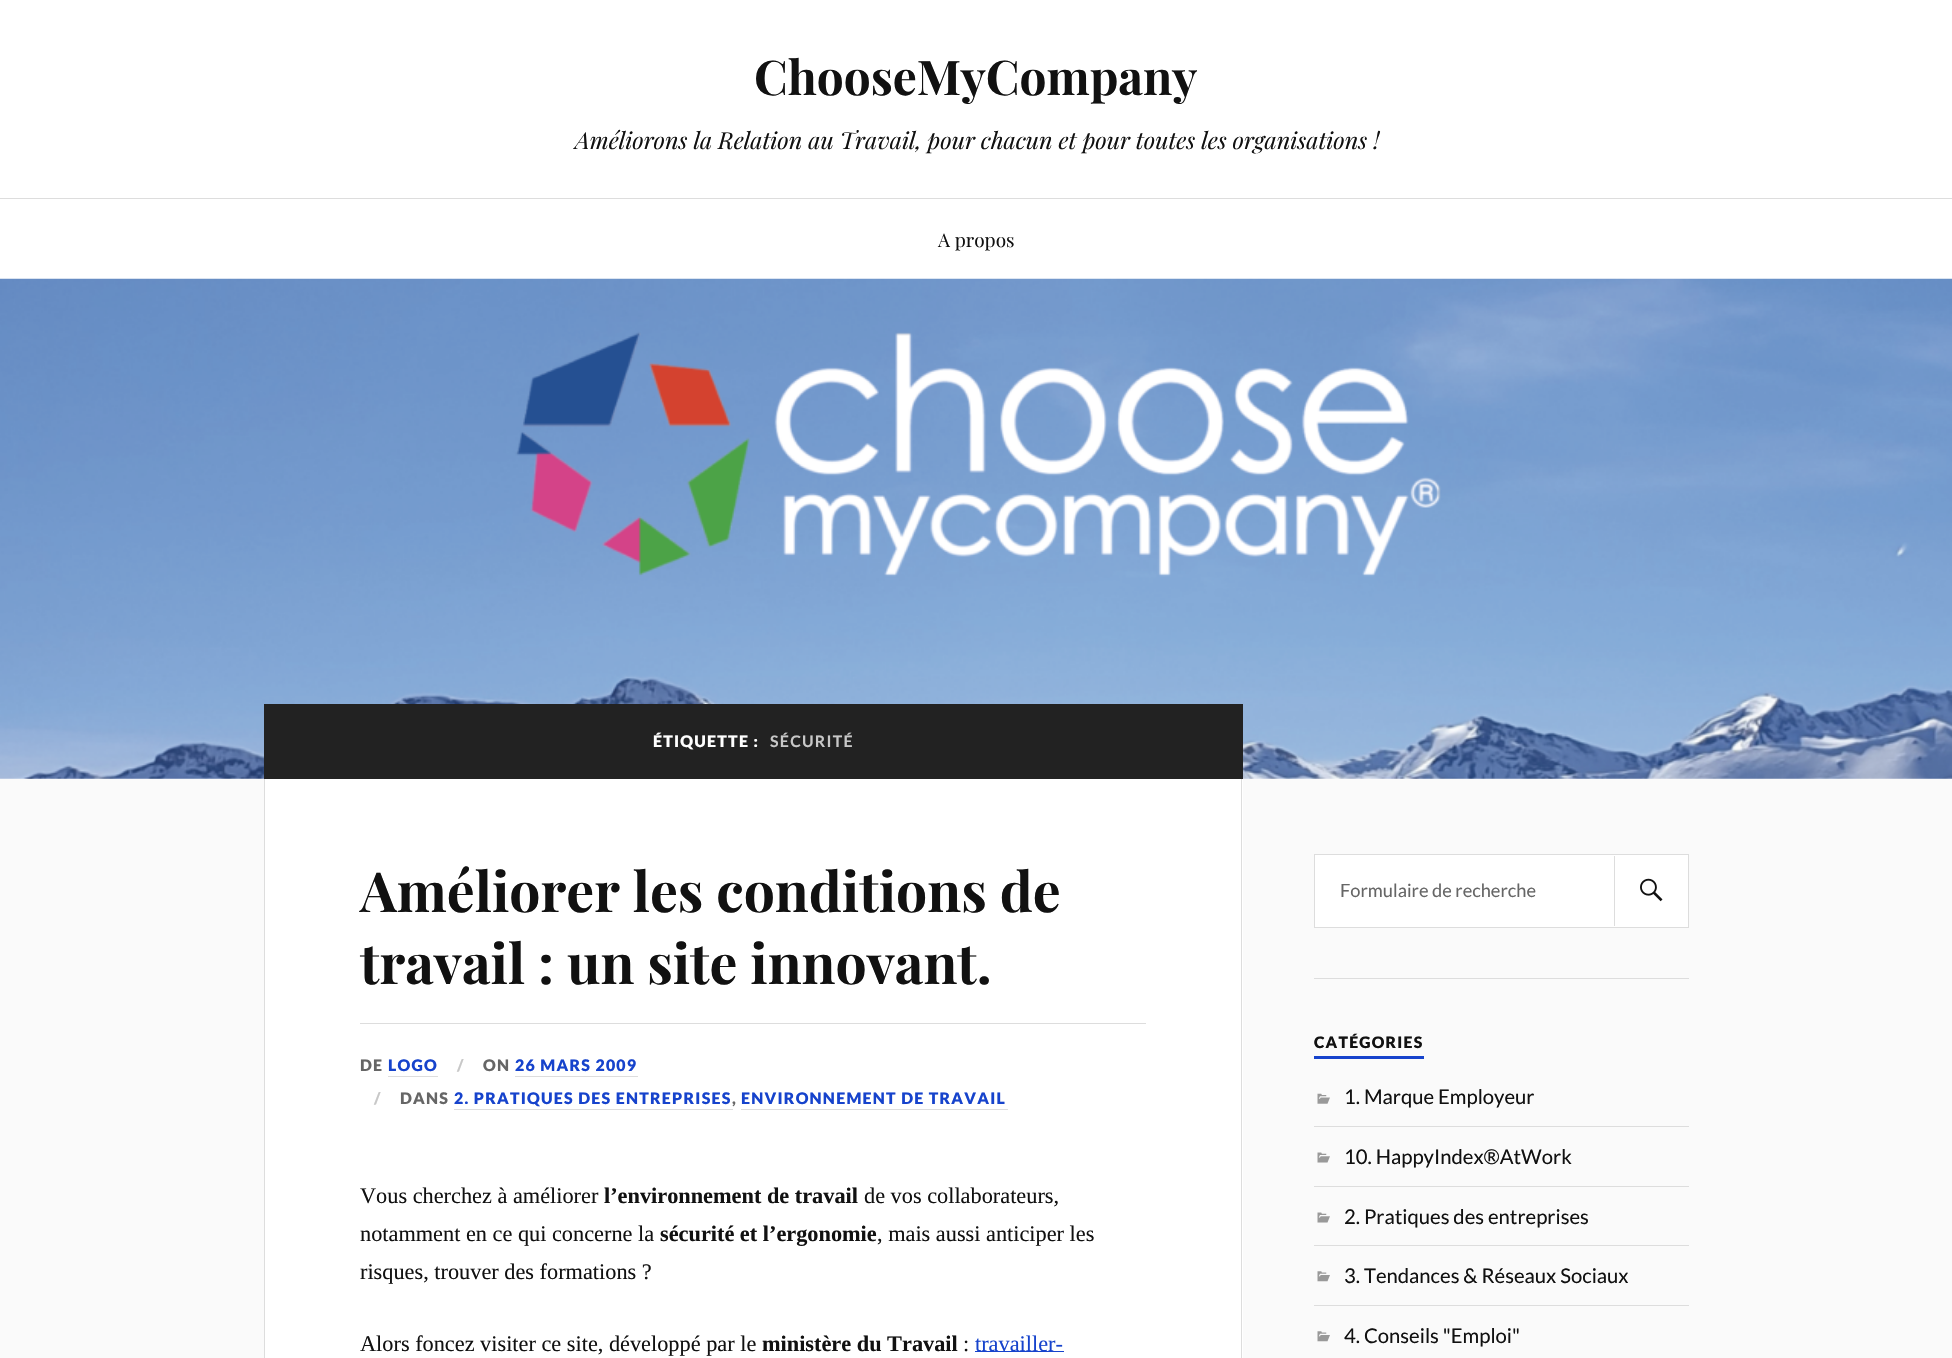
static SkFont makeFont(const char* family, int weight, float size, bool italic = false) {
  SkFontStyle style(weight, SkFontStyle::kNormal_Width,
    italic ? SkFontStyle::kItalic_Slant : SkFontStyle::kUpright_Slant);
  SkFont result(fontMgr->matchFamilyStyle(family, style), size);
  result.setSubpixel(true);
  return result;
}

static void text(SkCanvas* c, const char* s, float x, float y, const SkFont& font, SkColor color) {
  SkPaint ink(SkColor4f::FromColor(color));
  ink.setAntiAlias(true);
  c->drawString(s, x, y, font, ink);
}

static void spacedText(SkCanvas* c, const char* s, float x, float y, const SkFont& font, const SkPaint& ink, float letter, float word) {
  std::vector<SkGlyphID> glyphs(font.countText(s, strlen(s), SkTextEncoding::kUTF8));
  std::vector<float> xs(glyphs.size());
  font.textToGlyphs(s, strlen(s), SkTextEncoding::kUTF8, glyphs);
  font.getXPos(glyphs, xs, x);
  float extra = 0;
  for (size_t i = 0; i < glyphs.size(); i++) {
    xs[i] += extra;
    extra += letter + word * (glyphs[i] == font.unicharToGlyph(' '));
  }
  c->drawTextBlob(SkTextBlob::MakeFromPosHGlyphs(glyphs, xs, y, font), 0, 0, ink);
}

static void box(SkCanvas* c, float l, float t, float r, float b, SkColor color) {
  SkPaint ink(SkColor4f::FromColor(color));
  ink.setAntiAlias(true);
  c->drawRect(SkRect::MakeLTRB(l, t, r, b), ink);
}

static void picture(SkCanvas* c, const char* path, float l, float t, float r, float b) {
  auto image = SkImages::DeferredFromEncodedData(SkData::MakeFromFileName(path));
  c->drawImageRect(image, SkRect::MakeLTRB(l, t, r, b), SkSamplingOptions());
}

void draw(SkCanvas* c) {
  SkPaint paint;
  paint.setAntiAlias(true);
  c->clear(0xfffafafa);
  box(c, 0, 0, 1952, 198, 0xffffffff);
  SkFont face1 = makeFont("Playfair Display", 700, 47.75f);
  text(c, "ChooseMyCompany", 754, 95, face1, 0xff111111);
  SkFont face2 = makeFont("Playfair Display", 400, 23.4f, true);
  text(c, "Améliorons la Relation au Travail, pour chacun et pour toutes les organisations !", 575, 149, face2, 0xff111111);
  box(c, 0, 199, 1952, 279, 0xffffffff);
  box(c, 0, 198, 1952, 199, 0xffdddddd);
  SkFont face3 = makeFont("Playfair Display", 400, 19);
  text(c, "A propos", 938, 247, face3, 0xff111111);
  picture(c, "img_01.png", 0, 278, 1952, 779);
  box(c, 264, 704, 1243, 779, 0xff222222);
  SkFont face4 = makeFont("Lato", 900, 15.9f);
  paint.setColor(0xffffffff);
  spacedText(c, "ÉTIQUETTE :", 653, 747, face4, paint, 1.25f, 0);
  SkFont face5 = makeFont("Lato", 700, 15.9f);
  paint.setColor(0xffc8c8c8);
  spacedText(c, "SÉCURITÉ", 770, 747, face5, paint, 1.25f, 0);
  box(c, 265, 779, 1243, 1358, 0xffffffff);
  box(c, 1241, 779, 1242, 1358, 0xffdddddd);
  box(c, 264, 779, 265, 1358, 0xffdddddd);
  SkFont face6 = makeFont("Playfair Display", 700, 55.25f);
  text(c, "Améliorer les conditions de", 360, 912, face6, 0xff111111);
  text(c, "travail : un site innovant.", 360, 984, face6, 0xff111111);
  box(c, 360, 1023, 1146, 1024, 0xffdddddd);
  paint.setColor(0xff666666);
  spacedText(c, "DE", 360, 1071, face4, paint, 1.25f, 0);
  paint.setColor(0xff1643cc);
  spacedText(c, "LOGO", 388, 1071, face4, paint, 1.25f, 0);
  box(c, 388, 1076, 438, 1077, 0xffdddddd);
  paint.setColor(0xffc8c8c8);
  spacedText(c, "/", 457, 1071, face4, paint, 1.25f, 0);
  paint.setColor(0xff666666);
  spacedText(c, "ON", 483, 1071, face4, paint, 1.25f, 0);
  paint.setColor(0xff1643cc);
  spacedText(c, "26 MARS 2009", 515, 1071, face4, paint, 1.25f, 0);
  box(c, 515, 1076, 638, 1077, 0xffdddddd);
  paint.setColor(0xffc8c8c8);
  spacedText(c, "/", 374, 1104, face4, paint, 1.25f, 0);
  paint.setColor(0xff666666);
  spacedText(c, "DANS", 400, 1104, face4, paint, 1.25f, 0);
  paint.setColor(0xff1643cc);
  spacedText(c, "2. PRATIQUES DES ENTREPRISES", 454, 1104, face4, paint, 1.25f, 0);
  box(c, 454, 1109, 733, 1110, 0xffdddddd);
  paint.setColor(0xff666666);
  spacedText(c, ",", 732, 1104, face4, paint, 1.25f, 0);
  paint.setColor(0xff1643cc);
  spacedText(c, "ENVIRONNEMENT DE TRAVAIL", 741, 1104, face4, paint, 1.25f, 0);
  box(c, 741, 1109, 1008, 1110, 0xffdddddd);
  SkFont face7 = makeFont("Liberation Serif", 400, 22.3f);
  text(c, "Vous cherchez à améliorer", 360, 1203, face7, 0xff111111);
  SkFont face8 = makeFont("Liberation Serif", 700, 22.3f);
  text(c, "l’environnement de travail", 604, 1203, face8, 0xff111111);
  text(c, "de vos collaborateurs,", 864, 1203, face7, 0xff111111);
  text(c, "notamment en ce qui concerne la", 360, 1241, face7, 0xff111111);
  text(c, "sécurité et l’ergonomie", 660, 1241, face8, 0xff111111);
  text(c, ", mais aussi anticiper les", 877, 1241, face7, 0xff111111);
  text(c, "risques, trouver des formations ?", 360, 1279, face7, 0xff111111);
  text(c, "Alors foncez visiter ce site, développé par le", 360, 1351, face7, 0xff111111);
  text(c, "ministère du Travail", 762, 1351, face8, 0xff111111);
  text(c, ":", 963, 1351, face7, 0xff111111);
  box(c, 975, 1351, 1064, 1352, 0xff1643cc);
  text(c, "travailler-", 975, 1351, face7, 0xff1643cc);
  paint.setColor(0xffffffff);
  c->drawRect(SkRect::MakeLTRB(1314.5f, 854.5f, 1688.5f, 927.5f), paint);
  paint.setStyle(SkPaint::kStroke_Style);
  paint.setStrokeWidth(1);
  paint.setColor(0xffdddddd);
  c->drawRect(SkRect::MakeLTRB(1314.5f, 854.5f, 1688.5f, 927.5f), paint);
  SkFont face9 = makeFont("Lato", 400, 18.25f);
  text(c, "Formulaire de recherche", 1340, 897, face9, 0xff666666);
  box(c, 1614, 856, 1615, 926, 0xffdddddd);
  picture(c, "img_02.png", 1640, 878, 1663, 902);
  box(c, 1314, 978, 1689, 979, 0xffdddddd);
  box(c, 1314, 1056, 1424, 1059, 0xff1643cc);
  SkFont face10 = makeFont("Lato", 900, 15.75f);
  paint.setStyle(SkPaint::kFill_Style);
  paint.setColor(0xff111111);
  spacedText(c, "CATÉGORIES", 1314, 1048, face10, paint, 1.25f, 0);
  box(c, 1314, 1126, 1689, 1127, 0xffdddddd);
  picture(c, "img_03.png", 1317, 1093, 1330, 1104);
  SkFont face11 = makeFont("Lato", 400, 20.25f);
  text(c, "1. Marque Employeur", 1344, 1104, face11, 0xff111111);
  box(c, 1314, 1186, 1689, 1187, 0xffdddddd);
  picture(c, "img_04.png", 1317, 1152, 1330, 1163);
  text(c, "10. HappyIndex®AtWork", 1344, 1164, face11, 0xff111111);
  box(c, 1314, 1245, 1689, 1246, 0xffdddddd);
  picture(c, "img_04.png", 1317, 1212, 1330, 1223);
  text(c, "2. Pratiques des entreprises", 1344, 1224, face11, 0xff111111);
  box(c, 1314, 1305, 1689, 1306, 0xffdddddd);
  picture(c, "img_05.png", 1317, 1271, 1330, 1282);
  text(c, "3. Tendances & Réseaux Sociaux", 1344, 1283, face11, 0xff111111);
  picture(c, "img_05.png", 1317, 1331, 1330, 1342);
  text(c, "4. Conseils \"Emploi\"", 1344, 1343, face11, 0xff111111);
}
